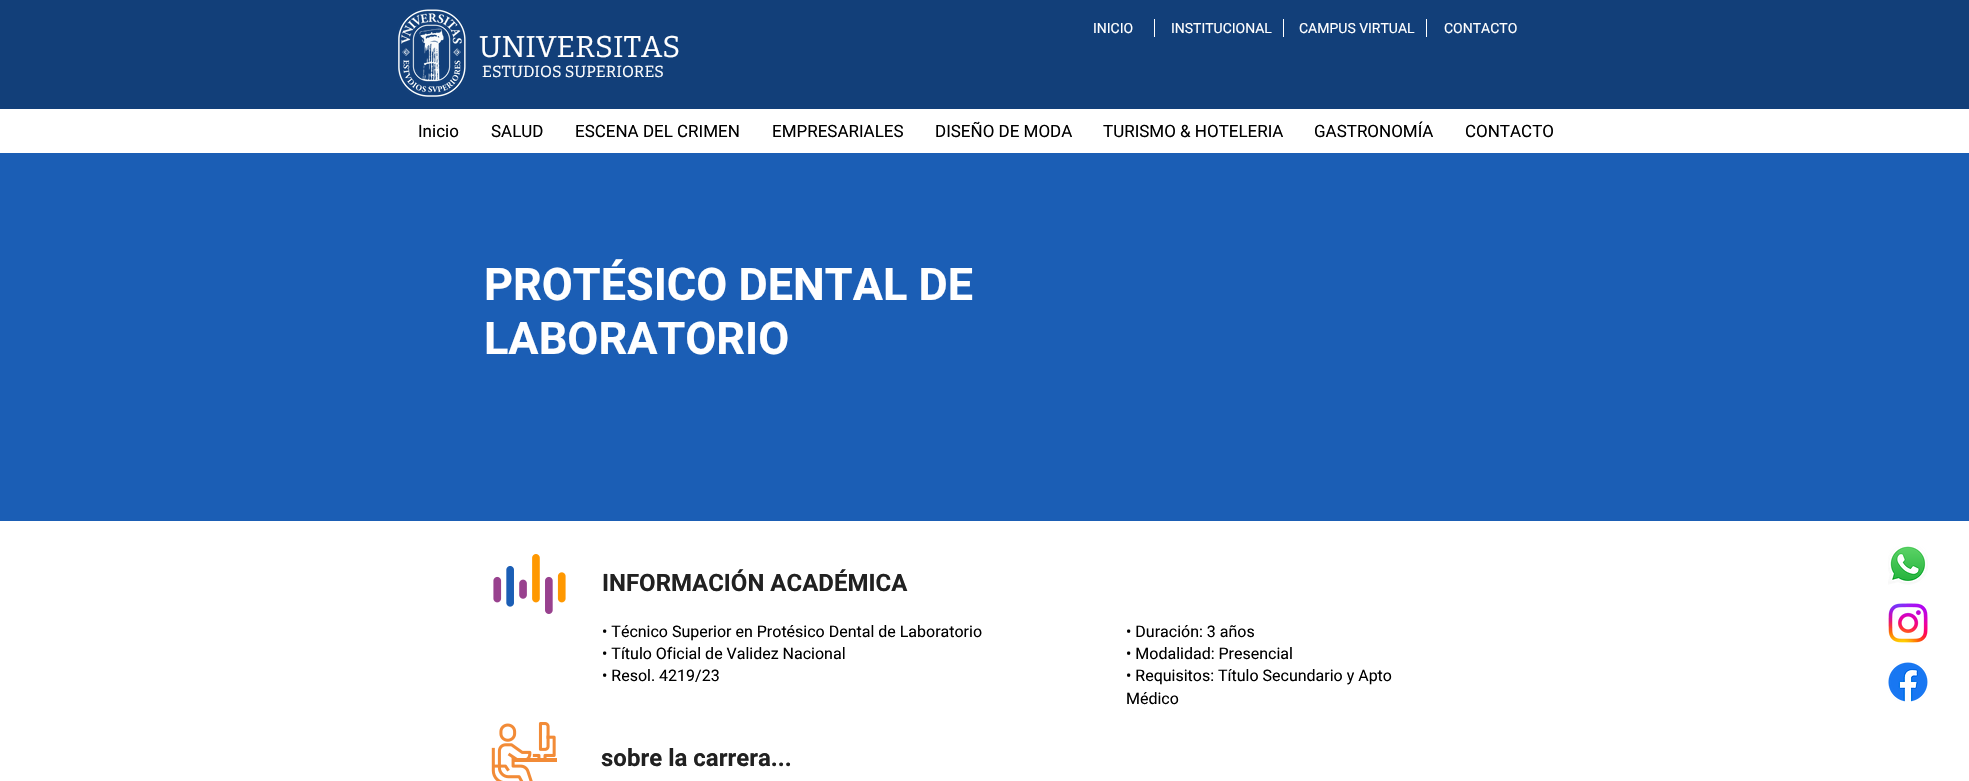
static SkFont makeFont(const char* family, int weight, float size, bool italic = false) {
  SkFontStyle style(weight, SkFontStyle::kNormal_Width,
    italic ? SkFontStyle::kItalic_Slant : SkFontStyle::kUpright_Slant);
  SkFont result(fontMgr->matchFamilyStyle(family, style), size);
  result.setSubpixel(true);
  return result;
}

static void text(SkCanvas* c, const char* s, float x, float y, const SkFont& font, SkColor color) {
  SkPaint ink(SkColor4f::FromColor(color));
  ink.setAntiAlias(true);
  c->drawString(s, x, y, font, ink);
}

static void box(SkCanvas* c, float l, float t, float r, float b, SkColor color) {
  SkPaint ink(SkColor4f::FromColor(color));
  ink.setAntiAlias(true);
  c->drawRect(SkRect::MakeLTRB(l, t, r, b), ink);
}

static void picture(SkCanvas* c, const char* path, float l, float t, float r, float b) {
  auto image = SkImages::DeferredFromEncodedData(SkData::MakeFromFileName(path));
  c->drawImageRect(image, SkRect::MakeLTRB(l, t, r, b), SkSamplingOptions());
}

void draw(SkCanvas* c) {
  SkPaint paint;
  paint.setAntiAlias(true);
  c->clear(0xffffffff);
  box(c, 0, 0, 1969, 109, 0xff123f79);
  picture(c, "img_01.png", 398, 9, 466, 97);
  box(c, 1154, 19, 1155, 37, 0xffffffff);
  SkFont face1 = makeFont("Roboto", 400, 14);
  text(c, "INICIO", 1093, 33, face1, 0xffffffff);
  box(c, 1283, 19, 1284, 37, 0xffffffff);
  text(c, "INSTITUCIONAL", 1171, 33, face1, 0xffffffff);
  box(c, 1426, 19, 1427, 37, 0xffffffff);
  text(c, "CAMPUS VIRTUAL", 1299, 33, face1, 0xffffffff);
  text(c, "CONTACTO", 1444, 33, face1, 0xffffffff);
  SkFont face2 = makeFont("Bitter", 400, 30);
  text(c, "UNIVERSITAS", 479, 57, face2, 0xffffffff);
  SkFont face3 = makeFont("Bitter", 400, 16);
  text(c, "ESTUDIOS SUPERIORES", 482, 77, face3, 0xffffffff);
  SkFont face4 = makeFont("Roboto", 400, 17);
  text(c, "Inicio", 418, 137, face4, 0xff000000);
  text(c, "SALUD", 491, 137, face4, 0xff000000);
  text(c, "ESCENA DEL CRIMEN", 575, 137, face4, 0xff000000);
  text(c, "EMPRESARIALES", 772, 137, face4, 0xff000000);
  text(c, "DISEÑO DE MODA", 935, 137, face4, 0xff000000);
  text(c, "TURISMO & HOTELERIA", 1103, 137, face4, 0xff000000);
  text(c, "GASTRONOMÍA", 1314, 137, face4, 0xff000000);
  text(c, "CONTACTO", 1465, 137, face4, 0xff000000);
  box(c, 0, 153, 1969, 521, 0xff1b5eb5);
  SkFont face5 = makeFont("Roboto", 700, 45);
  text(c, "PROTÉSICO DENTAL DE", 484, 300, face5, 0xffffffff);
  text(c, "LABORATORIO", 484, 354, face5, 0xffffffff);
  picture(c, "img_02.png", 493, 554, 566, 614);
  SkFont face6 = makeFont("Roboto", 700, 24);
  text(c, "INFORMACIÓN ACADÉMICA", 602, 591, face6, 0xff212121);
  SkFont face7 = makeFont("Roboto", 400, 16);
  text(c, "• Técnico Superior en Protésico Dental de Laboratorio", 602, 637, face7, 0xff000000);
  text(c, "• Título Oficial de Validez Nacional", 602, 659, face7, 0xff000000);
  text(c, "• Resol. 4219/23", 602, 681, face7, 0xff000000);
  text(c, "• Duración: 3 años", 1126, 637, face7, 0xff000000);
  text(c, "• Modalidad: Presencial", 1126, 659, face7, 0xff000000);
  text(c, "• Requisitos: Título Secundario y Apto", 1126, 681, face7, 0xff000000);
  text(c, "Médico", 1126, 704, face7, 0xff000000);
  picture(c, "img_03.png", 491, 722, 557, 781);
  text(c, "sobre la carrera...", 601, 766, face6, 0xff212121);
  picture(c, "img_04.png", 1888, 546, 1928, 585);
  picture(c, "img_05.png", 1888, 603, 1928, 643);
  picture(c, "img_06.png", 1888, 662, 1928, 702);
}
